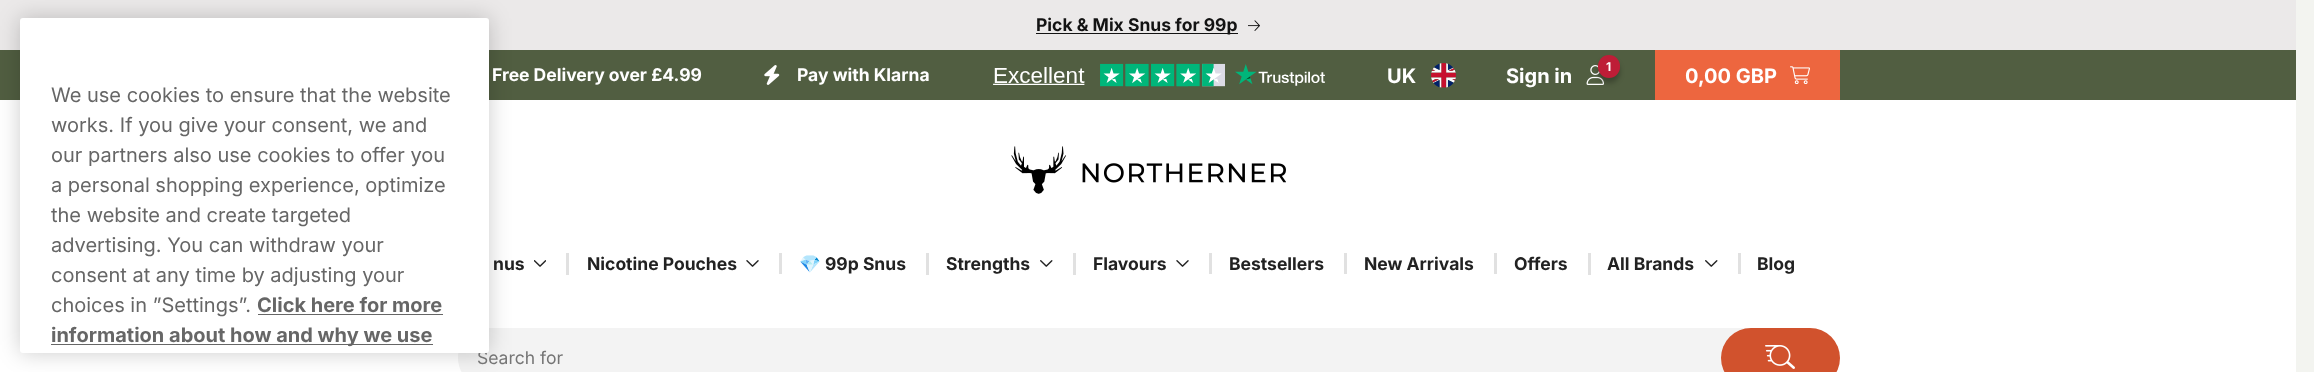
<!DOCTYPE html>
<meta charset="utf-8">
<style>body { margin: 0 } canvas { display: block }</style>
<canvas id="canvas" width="2314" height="372"></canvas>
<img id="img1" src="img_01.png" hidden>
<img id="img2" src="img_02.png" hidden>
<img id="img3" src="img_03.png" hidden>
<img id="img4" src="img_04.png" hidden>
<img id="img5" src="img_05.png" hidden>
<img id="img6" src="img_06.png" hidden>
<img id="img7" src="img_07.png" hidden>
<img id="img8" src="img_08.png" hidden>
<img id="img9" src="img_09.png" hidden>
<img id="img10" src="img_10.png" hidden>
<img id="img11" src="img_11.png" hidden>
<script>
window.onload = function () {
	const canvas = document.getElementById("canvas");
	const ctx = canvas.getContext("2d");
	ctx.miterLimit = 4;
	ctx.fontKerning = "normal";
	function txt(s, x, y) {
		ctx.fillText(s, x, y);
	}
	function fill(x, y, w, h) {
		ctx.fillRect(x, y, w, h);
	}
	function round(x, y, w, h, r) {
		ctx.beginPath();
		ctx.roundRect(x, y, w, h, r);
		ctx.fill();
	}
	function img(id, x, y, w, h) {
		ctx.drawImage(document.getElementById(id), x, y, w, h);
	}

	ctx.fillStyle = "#F3F4F0";
	fill(0, 0, 2314, 372);
	ctx.fillStyle = "#EBE9E9";
	fill(0, 0, 2296, 50);
	ctx.fillStyle = "#FFFFFF";
	fill(0, 100, 2296, 272);
	ctx.fillStyle = "#515E41";
	fill(0, 50, 2296, 50);
	ctx.fillStyle = "#F3F3F3";
	ctx.beginPath();
	ctx.moveTo(488, 328);
	ctx.lineTo(1778, 328);
	ctx.lineTo(1778, 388);
	ctx.lineTo(488, 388);
	ctx.bezierCurveTo(471.5, 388, 458, 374.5, 458, 358);
	ctx.bezierCurveTo(458, 341.5, 471.5, 328, 488, 328);
	ctx.closePath();
	ctx.fill();
	ctx.fillStyle = "rgba(0, 0, 0, 0.2)";
	ctx.filter = "blur(11px)";
	ctx.beginPath();
	ctx.roundRect(20, 18, 469, 335, 3);
	ctx.fill();
	ctx.filter = "none";
	ctx.fillStyle = "#131313";
	fill(1036, 33, 202, 1);
	img("img1", 1248, 20, 12, 11);
	img("img2", 764, 65, 16, 20);
	img("img3", 993, 63, 332, 24);
	img("img4", 1431, 63, 25, 25);
	img("img5", 1586, 65, 18, 20);
	ctx.fillStyle = "rgba(0, 0, 0, 0.25)";
	ctx.filter = "blur(2.5px)";
	ctx.beginPath();
	ctx.roundRect(1598, 60, 22, 23, 11);
	ctx.fill();
	ctx.filter = "none";
	ctx.fillStyle = "#BE1D37";
	round(1598, 55, 22, 23, 11);
	ctx.fillStyle = "#ED663F";
	fill(1655, 50, 185, 50);
	img("img6", 1790, 66, 20, 18);
	img("img7", 1011, 146, 275, 48);
	img("img8", 534, 260, 12, 7);
	ctx.fillStyle = "#E1E1E1";
	fill(566, 253, 3, 22);
	img("img9", 746, 260, 13, 7);
	fill(779, 253, 3, 21);
	fill(926, 253, 3, 22);
	img("img10", 1040, 260, 13, 7);
	fill(1073, 253, 3, 22);
	img("img9", 1176, 260, 13, 7);
	fill(1209, 253, 3, 21);
	fill(1344, 253, 3, 21);
	fill(1494, 253, 3, 21);
	fill(1588, 253, 3, 22);
	img("img10", 1705, 260, 13, 7);
	fill(1738, 253, 3, 21);
	ctx.fillStyle = "#D1522D";
	round(1721, 328, 119, 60, 30);
	img("img11", 1765, 345, 30, 24);
	ctx.font = "bold 17.5px Inter";
	ctx.fillStyle = "#131313";
	txt("Pick & Mix Snus for 99p", 1036, 31);
	ctx.fillStyle = "#FFFFFF";
	txt("Free Delivery over £4.99", 492, 81);
	txt("Pay with Klarna", 797, 81);
	ctx.font = "bold 20px Inter";
	txt("UK", 1387, 83);
	ctx.font = "bold 12px Inter";
	txt("1", 1606, 71);
	ctx.font = "bold 20px Inter";
	txt("Sign in", 1506, 83);
	txt("0,00 GBP", 1685, 83);
	ctx.font = "bold 17.5px Inter";
	ctx.fillStyle = "#222222";
	txt("nus", 493, 270);
	txt("Nicotine Pouches", 587, 270);
	ctx.font = "bold 17.5px Noto Color Emoji";
	txt("💎", 799, 270);
	ctx.font = "bold 17.5px Inter";
	txt("99p Snus", 825, 270);
	txt("Strengths", 946, 270);
	txt("Flavours", 1093, 270);
	txt("Bestsellers", 1229, 270);
	txt("New Arrivals", 1364, 270);
	txt("Offers", 1514, 270);
	txt("All Brands", 1607, 270);
	txt("Blog", 1757, 270);
	ctx.font = "17.5px Inter";
	ctx.fillStyle = "#757575";
	txt("Search for", 477, 364);
	ctx.fillStyle = "#FFFFFF";
	round(20, 18, 469, 335, 3);
	ctx.fillStyle = "#666666";
	fill(51, 344, 382, 1);
	ctx.font = "bold 20px Inter";
	txt("information about how and why we use", 51, 342);
	txt("Click here for more", 257, 312);
	fill(258, 314, 185, 1);
	ctx.font = "20px Inter";
	txt("choices in ”Settings”.", 51, 312);
	txt("consent at any time by adjusting your", 51, 282);
	txt("advertising. You can withdraw your", 51, 252);
	txt("the website and create targeted", 51, 222);
	txt("a personal shopping experience, optimize", 51, 192);
	txt("our partners also use cookies to offer you", 51, 162);
	txt("works. If you give your consent, we and", 51, 132);
	txt("We use cookies to ensure that the website", 51, 102);
};
</script>
